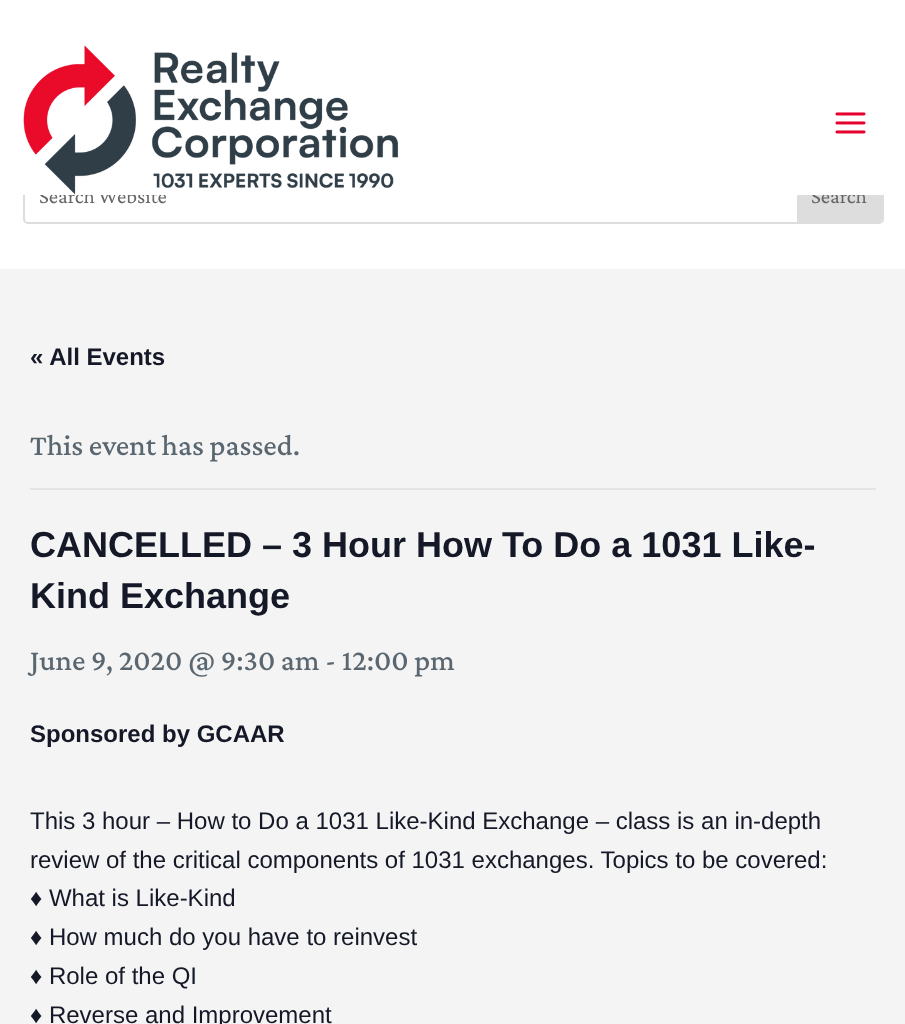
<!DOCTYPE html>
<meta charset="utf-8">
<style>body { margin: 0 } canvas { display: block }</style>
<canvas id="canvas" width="905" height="1024"></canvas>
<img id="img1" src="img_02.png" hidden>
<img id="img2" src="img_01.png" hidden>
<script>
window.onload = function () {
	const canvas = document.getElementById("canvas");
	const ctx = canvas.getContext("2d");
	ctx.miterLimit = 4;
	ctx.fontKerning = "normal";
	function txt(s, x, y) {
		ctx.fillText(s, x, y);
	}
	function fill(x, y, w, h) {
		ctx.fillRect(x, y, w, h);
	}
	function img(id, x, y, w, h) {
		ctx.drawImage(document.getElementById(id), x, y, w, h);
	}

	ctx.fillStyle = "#F4F4F4";
	fill(0, 0, 905, 1024);
	ctx.fillStyle = "#FFFFFF";
	fill(0, 0, 905, 269);
	img("img1", 835, 112, 31, 22);
	ctx.beginPath();
	ctx.roundRect(24, 168, 859, 55, 4);
	ctx.strokeStyle = "#DDDDDD";
	ctx.lineWidth = 2;
	ctx.stroke();
	ctx.fillStyle = "#DDDDDD";
	ctx.beginPath();
	ctx.roundRect(797, 168, 85, 54, [0, 3, 3, 0]);
	ctx.fill();
	ctx.fillStyle = "#E4E4E4";
	fill(30, 488, 846, 2);
	ctx.font = "21px Crimson Pro";
	ctx.fillStyle = "#666666";
	txt("Search Website", 39, 203);
	txt("Search", 811, 203);
	ctx.fillStyle = "#FFFFFF";
	fill(23, 167, 861, 28);
	img("img2", 23, 45, 376, 150);
	ctx.font = "bold 24px Liberation Sans";
	ctx.fillStyle = "#141827";
	txt("« All Events", 30, 365);
	ctx.font = "500 30px Crimson Pro";
	ctx.fillStyle = "#5B6770";
	txt("This event has passed.", 30, 455);
	ctx.font = "bold 36px Liberation Sans";
	ctx.fillStyle = "#141827";
	txt("CANCELLED – 3 Hour How To Do a 1031 Like-", 30, 557);
	txt("Kind Exchange", 30, 608);
	ctx.font = "500 30px Crimson Pro";
	ctx.fillStyle = "#5B6770";
	txt("June 9, 2020 @ 9:30 am - 12:00 pm", 30, 670);
	ctx.font = "bold 24px Liberation Sans";
	ctx.fillStyle = "#141827";
	txt("Sponsored by GCAAR", 30, 742);
	ctx.font = "24px Liberation Sans";
	txt("This 3 hour – How to Do a 1031 Like-Kind Exchange – class is an in-depth", 30, 829);
	txt("review of the critical components of 1031 exchanges. Topics to be covered:", 30, 868);
	txt("♦ What is Like-Kind", 30, 906);
	txt("♦ How much do you have to reinvest", 30, 945);
	txt("♦ Role of the QI", 30, 984);
	txt("♦ Reverse and Improvement", 30, 1023);
};
</script>
